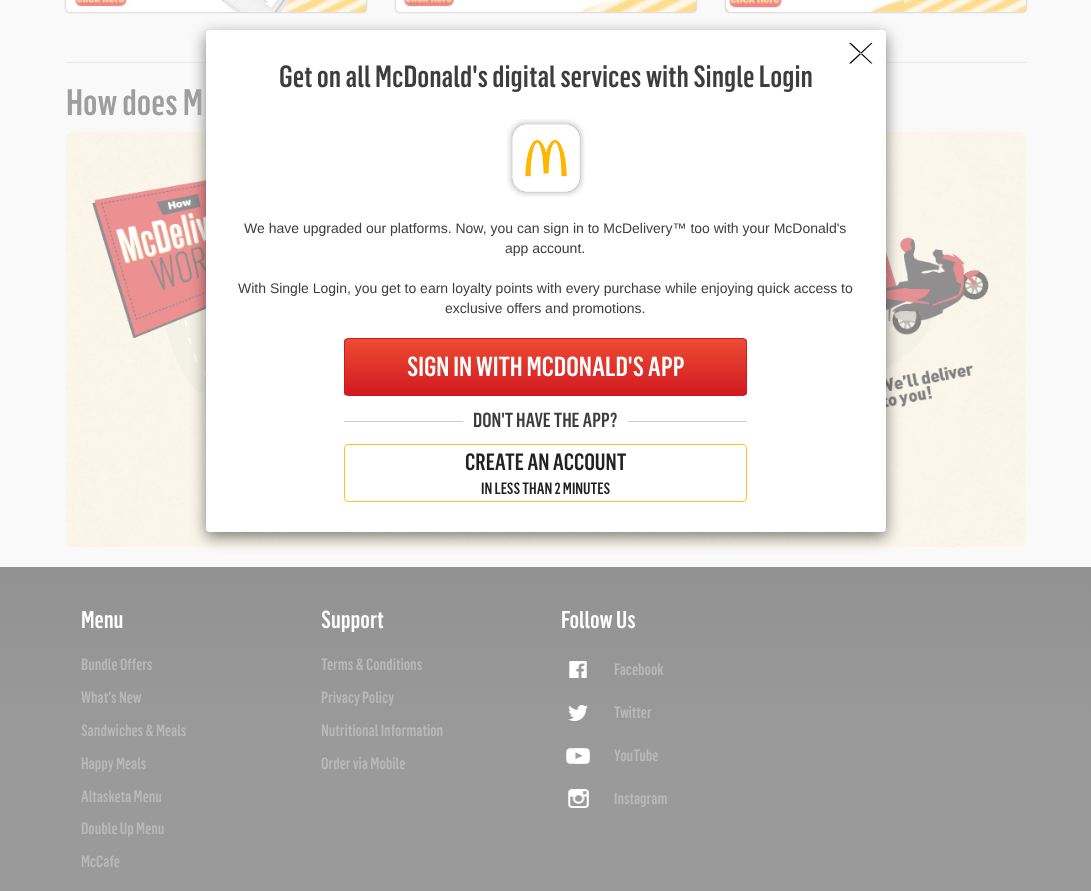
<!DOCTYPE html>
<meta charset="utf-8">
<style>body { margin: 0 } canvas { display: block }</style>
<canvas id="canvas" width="1091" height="891"></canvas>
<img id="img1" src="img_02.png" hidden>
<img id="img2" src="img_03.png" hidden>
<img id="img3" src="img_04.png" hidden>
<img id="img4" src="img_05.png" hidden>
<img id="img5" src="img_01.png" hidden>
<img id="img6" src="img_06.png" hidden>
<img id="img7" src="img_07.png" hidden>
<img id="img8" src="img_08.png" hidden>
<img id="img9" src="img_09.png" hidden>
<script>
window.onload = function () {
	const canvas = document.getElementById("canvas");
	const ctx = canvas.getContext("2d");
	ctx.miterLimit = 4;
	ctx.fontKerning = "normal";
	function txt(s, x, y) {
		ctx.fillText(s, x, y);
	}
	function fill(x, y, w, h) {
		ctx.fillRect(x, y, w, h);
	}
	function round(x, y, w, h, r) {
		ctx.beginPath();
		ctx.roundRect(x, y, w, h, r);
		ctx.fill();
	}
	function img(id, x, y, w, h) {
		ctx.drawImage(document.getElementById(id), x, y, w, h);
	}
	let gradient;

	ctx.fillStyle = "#F9F9F9";
	fill(0, 0, 1091, 891);
	ctx.fillStyle = "#E9E9E9";
	fill(66, 62, 960, 1);
	ctx.fillStyle = "#AAAAAA";
	ctx.filter = "blur(1px)";
	ctx.beginPath();
	ctx.roundRect(66, -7, 300, 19, 4);
	ctx.fill();
	ctx.filter = "none";
	img("img1", 66, 0, 300, 12);
	ctx.filter = "blur(1px)";
	ctx.beginPath();
	ctx.roundRect(396, -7, 300, 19, 4);
	ctx.fill();
	ctx.filter = "none";
	img("img2", 396, 0, 300, 12);
	ctx.filter = "blur(1px)";
	ctx.beginPath();
	ctx.roundRect(726, -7, 300, 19, 4);
	ctx.fill();
	ctx.filter = "none";
	img("img3", 726, 0, 300, 12);
	img("img4", 66, 132, 960, 415);
	ctx.fillStyle = "rgba(0, 0, 0, 0.5)";
	ctx.filter = "blur(7.5px)";
	ctx.beginPath();
	ctx.roundRect(206, 35, 680, 502, 4);
	ctx.fill();
	ctx.filter = "none";
	ctx.fillStyle = "#FFFFFF";
	round(206, 30, 680, 502, 4);
	ctx.fillStyle = "#000000";
	ctx.beginPath();
	ctx.moveTo(851, 63.5);
	ctx.lineTo(849, 63.5);
	ctx.lineTo(871, 43);
	ctx.lineTo(872.5, 43);
	ctx.closePath();
	ctx.moveTo(851, 43);
	ctx.lineTo(849, 43);
	ctx.lineTo(871, 63.5);
	ctx.lineTo(872.5, 63.5);
	ctx.closePath();
	ctx.fill();
	img("img5", 507, 119, 78, 78);
	ctx.save();
	ctx.beginPath();
	ctx.roundRect(344, 338, 403, 58, 4);
	ctx.clip();
	gradient = ctx.createLinearGradient(546, 339, 546, 395);
	gradient.addColorStop(0, "#EC4C34");
	gradient.addColorStop(1, "#D21920");
	ctx.fillStyle = gradient;
	fill(344, 339, 403, 56);
	ctx.restore();
	ctx.beginPath();
	ctx.roundRect(344.5, 338.5, 402, 57, 3.5);
	ctx.strokeStyle = "#D21920";
	ctx.stroke();
	ctx.fillStyle = "#CCCCCC";
	fill(344, 421, 119, 1);
	fill(628, 421, 119, 1);
	ctx.beginPath();
	ctx.roundRect(344.5, 444.5, 402, 57, 3.5);
	ctx.strokeStyle = "#FFC423";
	ctx.stroke();
	gradient = ctx.createLinearGradient(546, 567, 546, 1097);
	gradient.addColorStop(0, "#929292");
	gradient.addColorStop(0.35, "#9A9A9A");
	ctx.fillStyle = gradient;
	fill(0, 567, 1091, 324);
	img("img6", 569, 661, 18, 17);
	img("img7", 568, 705, 20, 16);
	img("img8", 566, 748, 24, 16);
	img("img9", 568, 789, 21, 19);
	ctx.font = "500 30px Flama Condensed";
	ctx.fillStyle = "#3D3D3D";
	txt("Get on all McDonald's digital services with Single Login", 279, 87);
	ctx.font = "14px Liberation Sans";
	txt("We have upgraded our platforms. Now, you can sign in to McDelivery™ too with your McDonald's", 244, 233);
	txt("app account.", 505, 253);
	txt("With Single Login, you get to earn loyalty points with every purchase while enjoying quick access to", 238, 293);
	txt("exclusive offers and promotions.", 445, 313);
	ctx.font = "500 27px Flama Condensed";
	ctx.fillStyle = "#FFFFFF";
	txt("SIGN IN WITH MCDONALD'S APP", 407, 376);
	ctx.font = "500 20px Flama Condensed";
	ctx.fillStyle = "#3D3D3D";
	txt("DON'T HAVE THE APP?", 473, 427);
	ctx.font = "500 23px Flama Condensed";
	ctx.fillStyle = "#222222";
	txt("CREATE AN ACCOUNT", 465, 470);
	ctx.font = "500 16px Flama Condensed";
	txt("IN LESS THAN 2 MINUTES", 481, 494);
	ctx.font = "500 36px Flama Condensed";
	ctx.fillStyle = "#9E9E9E";
	txt("How does M", 66, 115);
	ctx.font = "500 24px Flama Condensed";
	ctx.fillStyle = "#FFFFFF";
	txt("Menu", 81, 628);
	ctx.font = "500 16px Flama Condensed";
	ctx.fillStyle = "#B9B9B9";
	txt("Bundle Offers", 81, 670);
	txt("What's New", 81, 703);
	txt("Sandwiches & Meals", 81, 736);
	txt("Happy Meals", 81, 769);
	txt("Altasketa Menu", 81, 802);
	txt("Double Up Menu", 81, 834);
	txt("McCafe", 81, 867);
	ctx.font = "500 24px Flama Condensed";
	ctx.fillStyle = "#FFFFFF";
	txt("Support", 321, 628);
	ctx.font = "500 16px Flama Condensed";
	ctx.fillStyle = "#B9B9B9";
	txt("Terms & Conditions", 321, 670);
	txt("Privacy Policy", 321, 703);
	txt("Nutritional Information", 321, 736);
	txt("Order via Mobile", 321, 769);
	ctx.font = "500 24px Flama Condensed";
	ctx.fillStyle = "#FFFFFF";
	txt("Follow Us", 561, 628);
	ctx.font = "500 16px Flama Condensed";
	ctx.fillStyle = "#B9B9B9";
	txt("Facebook", 614, 675);
	txt("Twitter", 614, 718);
	txt("YouTube", 614, 761);
	txt("Instagram", 614, 804);
};
</script>
